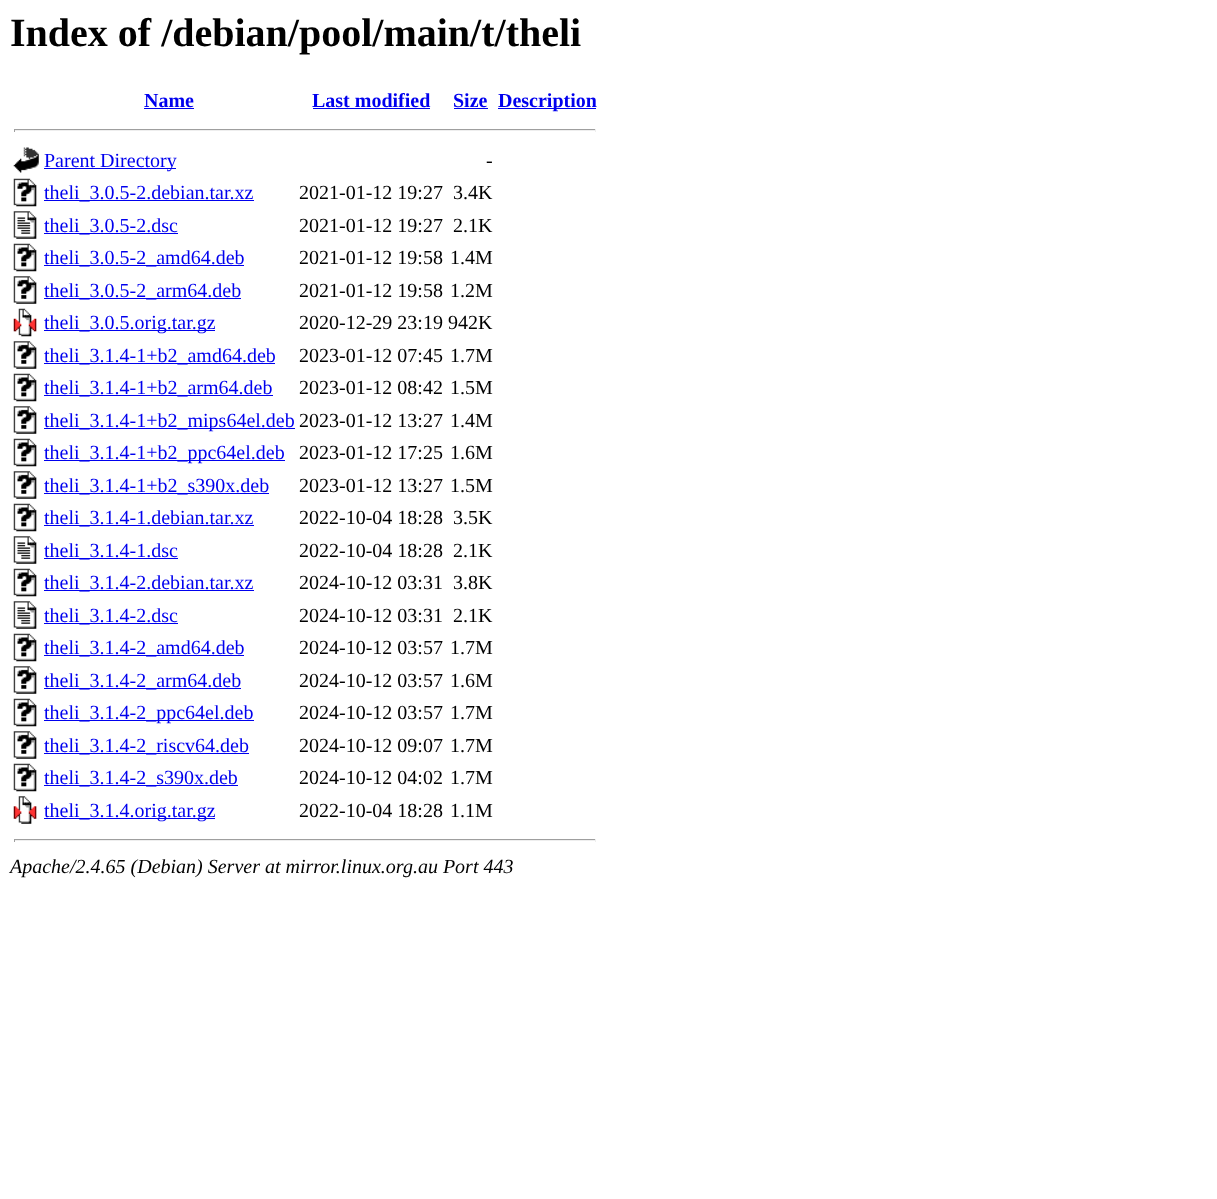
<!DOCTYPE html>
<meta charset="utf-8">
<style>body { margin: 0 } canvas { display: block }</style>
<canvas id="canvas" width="1217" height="1199"></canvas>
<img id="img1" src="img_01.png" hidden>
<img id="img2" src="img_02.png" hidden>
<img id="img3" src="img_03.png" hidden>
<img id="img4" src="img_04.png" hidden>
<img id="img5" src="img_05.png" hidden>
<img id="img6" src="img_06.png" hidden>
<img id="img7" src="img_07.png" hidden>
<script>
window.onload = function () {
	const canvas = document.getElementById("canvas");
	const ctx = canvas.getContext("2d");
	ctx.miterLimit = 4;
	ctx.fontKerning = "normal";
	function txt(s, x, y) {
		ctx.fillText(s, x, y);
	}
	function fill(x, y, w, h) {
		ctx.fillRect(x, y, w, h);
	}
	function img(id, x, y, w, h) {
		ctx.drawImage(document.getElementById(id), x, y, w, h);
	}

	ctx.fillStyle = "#FFFFFF";
	fill(0, 0, 1217, 1199);
	ctx.fillStyle = "#0000EE";
	fill(144, 108, 50, 1);
	fill(313, 108, 117, 1);
	fill(454, 108, 34, 1);
	fill(498, 108, 98, 1);
	ctx.fillStyle = "#9F9F9F";
	fill(14, 129, 582, 1);
	ctx.fillStyle = "#EEEEEE";
	fill(595, 129, 1, 3);
	fill(14, 130, 582, 1);
	ctx.fillStyle = "#9F9F9F";
	fill(14, 129, 1, 3);
	img("img1", 13, 147, 26, 26);
	ctx.fillStyle = "#0000EE";
	fill(44, 168, 132, 1);
	img("img2", 13, 178, 24, 29);
	fill(44, 200, 210, 1);
	img("img3", 13, 211, 24, 28);
	fill(44, 233, 134, 1);
	img("img2", 13, 243, 24, 29);
	fill(44, 265, 200, 1);
	img("img4", 13, 276, 24, 28);
	fill(44, 298, 197, 1);
	img("img5", 13, 308, 24, 29);
	fill(44, 330, 171, 1);
	img("img6", 13, 341, 24, 28);
	fill(44, 363, 231, 1);
	img("img2", 13, 373, 24, 29);
	fill(44, 395, 229, 1);
	img("img6", 13, 406, 24, 28);
	fill(44, 428, 251, 1);
	img("img2", 13, 438, 24, 29);
	fill(44, 460, 241, 1);
	img("img6", 13, 471, 24, 28);
	fill(44, 493, 225, 1);
	img("img2", 13, 503, 24, 29);
	fill(44, 525, 210, 1);
	img("img3", 13, 536, 24, 28);
	fill(44, 558, 134, 1);
	img("img2", 13, 568, 24, 29);
	fill(44, 590, 210, 1);
	img("img3", 13, 601, 24, 28);
	fill(44, 623, 134, 1);
	img("img2", 13, 633, 24, 29);
	fill(44, 655, 200, 1);
	img("img6", 13, 666, 24, 28);
	fill(44, 688, 197, 1);
	img("img2", 13, 698, 24, 29);
	fill(44, 720, 210, 1);
	img("img6", 13, 731, 24, 28);
	fill(44, 753, 205, 1);
	img("img2", 13, 763, 24, 29);
	fill(44, 785, 194, 1);
	img("img7", 13, 796, 24, 28);
	fill(44, 818, 171, 1);
	ctx.fillStyle = "#9F9F9F";
	fill(14, 839, 582, 1);
	ctx.fillStyle = "#EEEEEE";
	fill(595, 839, 1, 3);
	fill(14, 840, 582, 1);
	ctx.fillStyle = "#9F9F9F";
	fill(14, 839, 1, 3);
	ctx.font = "bold 40px Liberation Serif";
	ctx.fillStyle = "#000000";
	txt("Index of /debian/pool/main/t/theli", 10, 46);
	ctx.font = "bold 20px Liberation Serif";
	ctx.fillStyle = "#0000EE";
	txt("Name", 144, 107);
	txt("Last modified", 312, 107);
	txt("Size", 453, 107);
	txt("Description", 498, 107);
	ctx.font = "20px Liberation Serif";
	txt("Parent Directory", 44, 167);
	ctx.fillStyle = "#000000";
	txt("-", 486, 167);
	ctx.fillStyle = "#0000EE";
	txt("theli_3.0.5-2.debian.tar.xz", 44, 199);
	ctx.fillStyle = "#000000";
	txt("2021-01-12 19:27", 299, 199);
	txt("3.4K", 453, 199);
	ctx.fillStyle = "#0000EE";
	txt("theli_3.0.5-2.dsc", 44, 232);
	ctx.fillStyle = "#000000";
	txt("2021-01-12 19:27", 299, 232);
	txt("2.1K", 453, 232);
	ctx.fillStyle = "#0000EE";
	txt("theli_3.0.5-2_amd64.deb", 44, 264);
	ctx.fillStyle = "#000000";
	txt("2021-01-12 19:58", 299, 264);
	txt("1.4M", 450, 264);
	ctx.fillStyle = "#0000EE";
	txt("theli_3.0.5-2_arm64.deb", 44, 297);
	ctx.fillStyle = "#000000";
	txt("2021-01-12 19:58", 299, 297);
	txt("1.2M", 450, 297);
	ctx.fillStyle = "#0000EE";
	txt("theli_3.0.5.orig.tar.gz", 44, 329);
	ctx.fillStyle = "#000000";
	txt("2020-12-29 23:19 942K", 299, 329);
	ctx.fillStyle = "#0000EE";
	txt("theli_3.1.4-1+b2_amd64.deb", 44, 362);
	ctx.fillStyle = "#000000";
	txt("2023-01-12 07:45", 299, 362);
	txt("1.7M", 450, 362);
	ctx.fillStyle = "#0000EE";
	txt("theli_3.1.4-1+b2_arm64.deb", 44, 394);
	ctx.fillStyle = "#000000";
	txt("2023-01-12 08:42", 299, 394);
	txt("1.5M", 450, 394);
	ctx.fillStyle = "#0000EE";
	txt("theli_3.1.4-1+b2_mips64el.deb", 44, 427);
	ctx.fillStyle = "#000000";
	txt("2023-01-12 13:27", 299, 427);
	txt("1.4M", 450, 427);
	ctx.fillStyle = "#0000EE";
	txt("theli_3.1.4-1+b2_ppc64el.deb", 44, 459);
	ctx.fillStyle = "#000000";
	txt("2023-01-12 17:25", 299, 459);
	txt("1.6M", 450, 459);
	ctx.fillStyle = "#0000EE";
	txt("theli_3.1.4-1+b2_s390x.deb", 44, 492);
	ctx.fillStyle = "#000000";
	txt("2023-01-12 13:27", 299, 492);
	txt("1.5M", 450, 492);
	ctx.fillStyle = "#0000EE";
	txt("theli_3.1.4-1.debian.tar.xz", 44, 524);
	ctx.fillStyle = "#000000";
	txt("2022-10-04 18:28", 299, 524);
	txt("3.5K", 453, 524);
	ctx.fillStyle = "#0000EE";
	txt("theli_3.1.4-1.dsc", 44, 557);
	ctx.fillStyle = "#000000";
	txt("2022-10-04 18:28", 299, 557);
	txt("2.1K", 453, 557);
	ctx.fillStyle = "#0000EE";
	txt("theli_3.1.4-2.debian.tar.xz", 44, 589);
	ctx.fillStyle = "#000000";
	txt("2024-10-12 03:31", 299, 589);
	txt("3.8K", 453, 589);
	ctx.fillStyle = "#0000EE";
	txt("theli_3.1.4-2.dsc", 44, 622);
	ctx.fillStyle = "#000000";
	txt("2024-10-12 03:31", 299, 622);
	txt("2.1K", 453, 622);
	ctx.fillStyle = "#0000EE";
	txt("theli_3.1.4-2_amd64.deb", 44, 654);
	ctx.fillStyle = "#000000";
	txt("2024-10-12 03:57", 299, 654);
	txt("1.7M", 450, 654);
	ctx.fillStyle = "#0000EE";
	txt("theli_3.1.4-2_arm64.deb", 44, 687);
	ctx.fillStyle = "#000000";
	txt("2024-10-12 03:57", 299, 687);
	txt("1.6M", 450, 687);
	ctx.fillStyle = "#0000EE";
	txt("theli_3.1.4-2_ppc64el.deb", 44, 719);
	ctx.fillStyle = "#000000";
	txt("2024-10-12 03:57", 299, 719);
	txt("1.7M", 450, 719);
	ctx.fillStyle = "#0000EE";
	txt("theli_3.1.4-2_riscv64.deb", 44, 752);
	ctx.fillStyle = "#000000";
	txt("2024-10-12 09:07", 299, 752);
	txt("1.7M", 450, 752);
	ctx.fillStyle = "#0000EE";
	txt("theli_3.1.4-2_s390x.deb", 44, 784);
	ctx.fillStyle = "#000000";
	txt("2024-10-12 04:02", 299, 784);
	txt("1.7M", 450, 784);
	ctx.fillStyle = "#0000EE";
	txt("theli_3.1.4.orig.tar.gz", 44, 817);
	ctx.fillStyle = "#000000";
	txt("2022-10-04 18:28", 299, 817);
	txt("1.1M", 450, 817);
	ctx.font = "italic 20px Liberation Serif";
	txt("Apache/2.4.65 (Debian) Server at mirror.linux.org.au Port 443", 10, 873);
};
</script>
